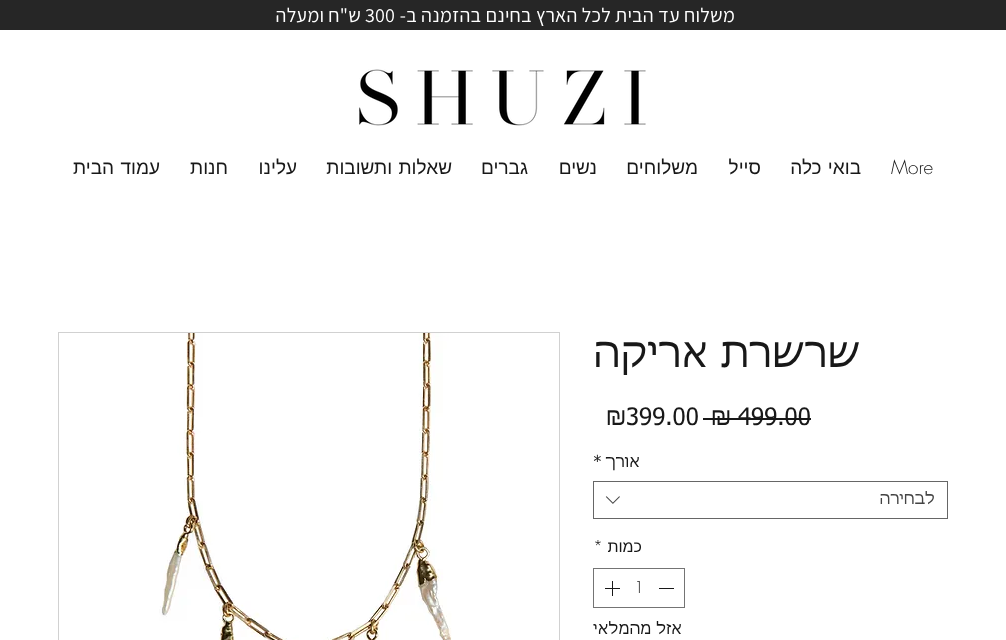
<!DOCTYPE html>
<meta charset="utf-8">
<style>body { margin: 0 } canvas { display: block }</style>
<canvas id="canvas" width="1006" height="640"></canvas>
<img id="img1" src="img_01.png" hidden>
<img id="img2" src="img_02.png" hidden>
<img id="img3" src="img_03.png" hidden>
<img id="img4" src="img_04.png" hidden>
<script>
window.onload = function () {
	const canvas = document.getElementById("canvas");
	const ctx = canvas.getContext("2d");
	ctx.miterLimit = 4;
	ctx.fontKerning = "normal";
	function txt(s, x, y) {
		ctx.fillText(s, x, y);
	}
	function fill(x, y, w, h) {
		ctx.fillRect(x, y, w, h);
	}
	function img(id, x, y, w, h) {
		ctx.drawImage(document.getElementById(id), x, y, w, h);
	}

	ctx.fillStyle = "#FFFFFF";
	fill(0, 0, 1006, 640);
	ctx.fillStyle = "#262626";
	fill(0, 0, 1006, 30);
	img("img1", 359, 69, 287, 57);
	ctx.fillStyle = "#181818";
	fill(738, 418, 73, 2);
	fill(703, 418, 35, 2);
	ctx.strokeStyle = "#666666";
	ctx.strokeRect(593.5, 481.5, 354, 37);
	img("img2", 605, 496, 15, 8);
	ctx.strokeStyle = "#747474";
	ctx.strokeRect(593.5, 568.5, 91, 39);
	fill(659, 588, 15, 1);
	img("img3", 605, 581, 15, 15);
	ctx.strokeStyle = "#D1D1D1";
	ctx.strokeRect(58.5, 332.5, 501, 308);
	img("img4", 159, 333, 293, 307);
	ctx.letterSpacing = "0.2px";
	ctx.direction = "rtl";
	ctx.font = "20px Assistant";
	ctx.fillStyle = "#FFFFFF";
	txt("משלוח עד הבית לכל הארץ בחינם בהזמנה ב-", 735, 22);
	ctx.direction = "ltr";
	txt("300", 365, 22);
	ctx.direction = "rtl";
	txt("ש\"ח ומעלה", 361, 22);
	ctx.letterSpacing = "0px";
	ctx.direction = "ltr";
	ctx.font = "300 19px futura";
	ctx.fillStyle = "#181818";
	txt("More", 891, 174);
	ctx.wordSpacing = "1px";
	ctx.direction = "rtl";
	ctx.font = "19px Liberation Sans";
	txt("בואי כלה", 861, 174);
	ctx.wordSpacing = "0px";
	txt("סייל", 761, 174);
	txt("משלוחים", 698, 174);
	txt("נשים", 597, 174);
	txt("גברים", 528, 174);
	ctx.wordSpacing = "1px";
	txt("שאלות ותשובות", 452, 174);
	ctx.wordSpacing = "0px";
	txt("עלינו", 297, 174);
	txt("חנות", 228, 174);
	ctx.wordSpacing = "1px";
	txt("עמוד הבית", 160, 174);
	ctx.wordSpacing = "0px";
	ctx.font = "40px tahoma";
	txt("שרשרת אריקה", 860, 367);
	ctx.direction = "ltr";
	ctx.font = "24px 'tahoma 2'";
	txt("499.00", 738, 425);
	ctx.font = "24px tahoma";
	txt("₪", 711, 425);
	ctx.font = "24px 'tahoma 2'";
	txt("399.00", 626, 425);
	ctx.font = "24px tahoma";
	txt("₪", 606, 425);
	ctx.direction = "rtl";
	ctx.font = "16px tahoma";
	txt("אורך", 640, 467);
	ctx.direction = "ltr";
	ctx.font = "16px 'tahoma 2'";
	txt("*", 593, 467);
	ctx.direction = "rtl";
	ctx.font = "16px tahoma";
	ctx.fillStyle = "#444444";
	txt("לבחירה", 935, 504);
	ctx.font = "16px Liberation Sans";
	ctx.fillStyle = "#181818";
	txt("כמות", 642, 552);
	ctx.direction = "ltr";
	ctx.font = "300 16px futura";
	txt("*", 593, 552);
	txt("1", 634, 593);
	ctx.direction = "rtl";
	ctx.font = "16px tahoma";
	txt("אזל מהמלאי", 682, 634);
};
</script>
